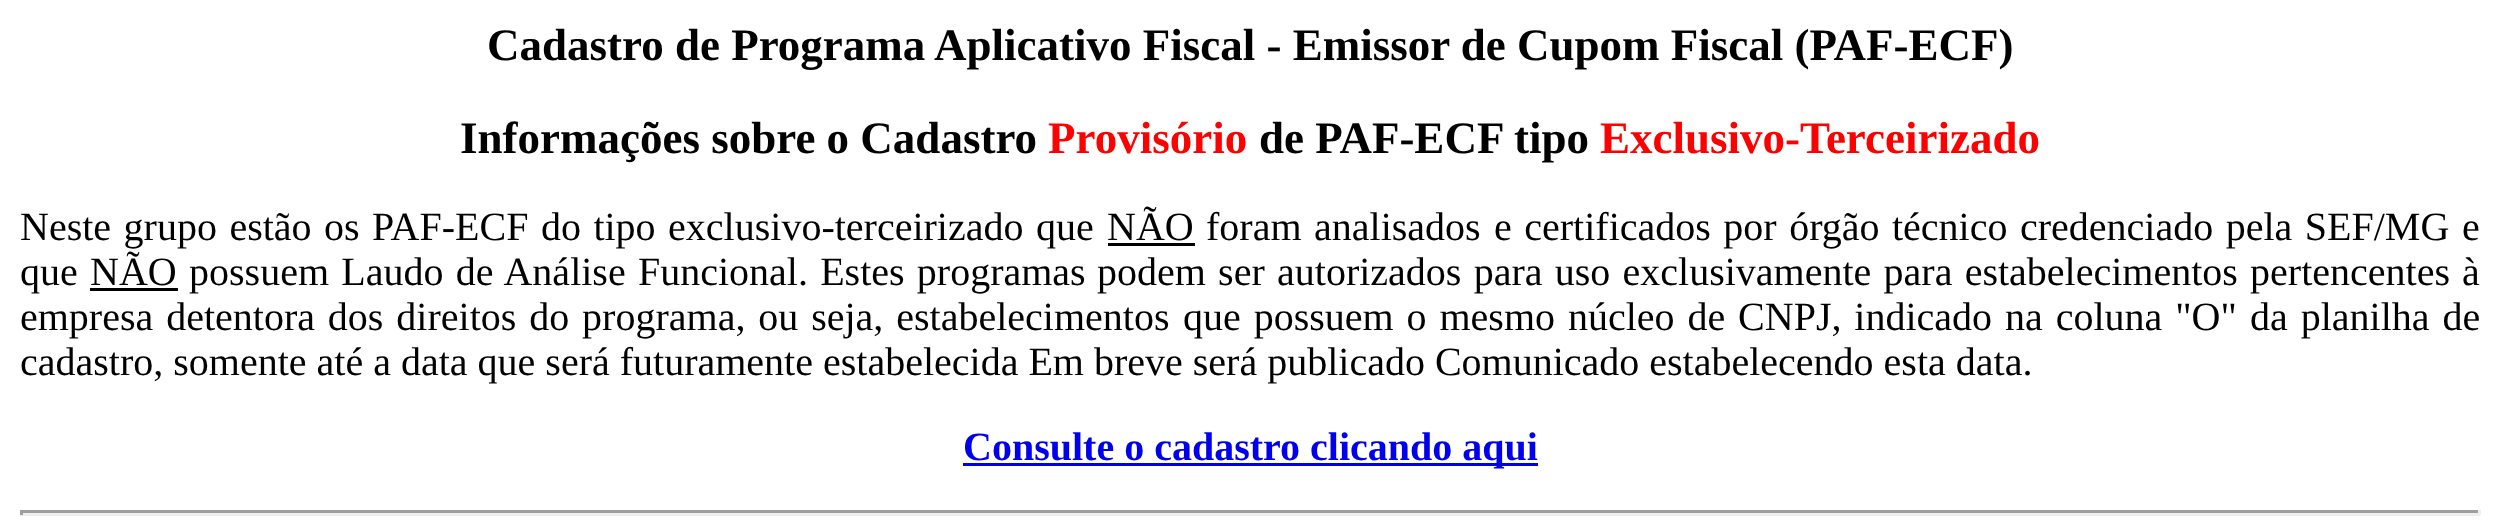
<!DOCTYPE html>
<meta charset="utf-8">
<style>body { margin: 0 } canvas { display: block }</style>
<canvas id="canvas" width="2500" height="527"></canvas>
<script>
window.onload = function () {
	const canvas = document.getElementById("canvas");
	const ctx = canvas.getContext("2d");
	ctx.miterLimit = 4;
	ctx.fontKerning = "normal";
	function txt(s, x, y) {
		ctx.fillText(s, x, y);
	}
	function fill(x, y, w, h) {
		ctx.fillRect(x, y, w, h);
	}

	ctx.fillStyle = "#FFFFFF";
	fill(0, 0, 2500, 527);
	ctx.fillStyle = "#000000";
	fill(1108, 243, 87, 3);
	fill(90, 288, 88, 3);
	ctx.fillStyle = "#0000EE";
	fill(963, 463, 575, 3);
	ctx.fillStyle = "#9F9F9F";
	fill(20, 510, 2460, 3);
	ctx.fillStyle = "#EEEEEE";
	fill(2478, 510, 3, 5);
	fill(20, 513, 2460, 3);
	ctx.fillStyle = "#9F9F9F";
	fill(20, 510, 3, 5);
	ctx.font = "bold 45px Liberation Serif";
	ctx.fillStyle = "#000000";
	txt("Cadastro de Programa Aplicativo Fiscal - Emissor de Cupom Fiscal (PAF-ECF)", 487, 60);
	txt("Informações sobre o Cadastro", 460, 153);
	ctx.fillStyle = "#FF0000";
	txt("Provisório", 1048, 153);
	ctx.fillStyle = "#000000";
	txt("de PAF-ECF tipo", 1259, 153);
	ctx.fillStyle = "#FF0000";
	txt("Exclusivo-Terceirizado", 1600, 153);
	ctx.wordSpacing = "2.5px";
	ctx.font = "40px Liberation Serif";
	ctx.fillStyle = "#000000";
	txt("Neste grupo estão os", 20, 240);
	txt("PAF-ECF do tipo exclusivo-terceirizado que", 372, 240);
	ctx.wordSpacing = "0px";
	txt("NÃO", 1107, 240);
	ctx.wordSpacing = "2.5px";
	txt("foram analisados", 1206, 240);
	txt("e certificados por órgão técnico credenciado pela SEF/MG", 1494, 240);
	ctx.wordSpacing = "0px";
	txt("e", 2462, 240);
	txt("que", 20, 285);
	txt("NÃO", 90, 285);
	ctx.wordSpacing = "2.25px";
	txt("possuem Laudo de Análise Funcional. Estes programas", 189, 285);
	txt("podem ser autorizados para uso exclusivamente para estabelecimentos pertencentes", 1097, 285);
	ctx.wordSpacing = "0px";
	txt("à", 2462, 285);
	ctx.wordSpacing = "2.9px";
	txt("empresa detentora dos direitos do programa, ou seja, estabelecimentos", 20, 330);
	txt("que possuem o mesmo núcleo de CNPJ, indicado na coluna \"O\"", 1183, 330);
	txt("da planilha de", 2250, 330);
	ctx.wordSpacing = "0px";
	txt("cadastro, somente até a data que será futuramente estabelecida Em breve será publicado Comunicado estabelecendo esta data.", 20, 375);
	ctx.font = "bold 40px Liberation Serif";
	ctx.fillStyle = "#0000EE";
	txt("Consulte o cadastro clicando aqui", 963, 460);
};
</script>
